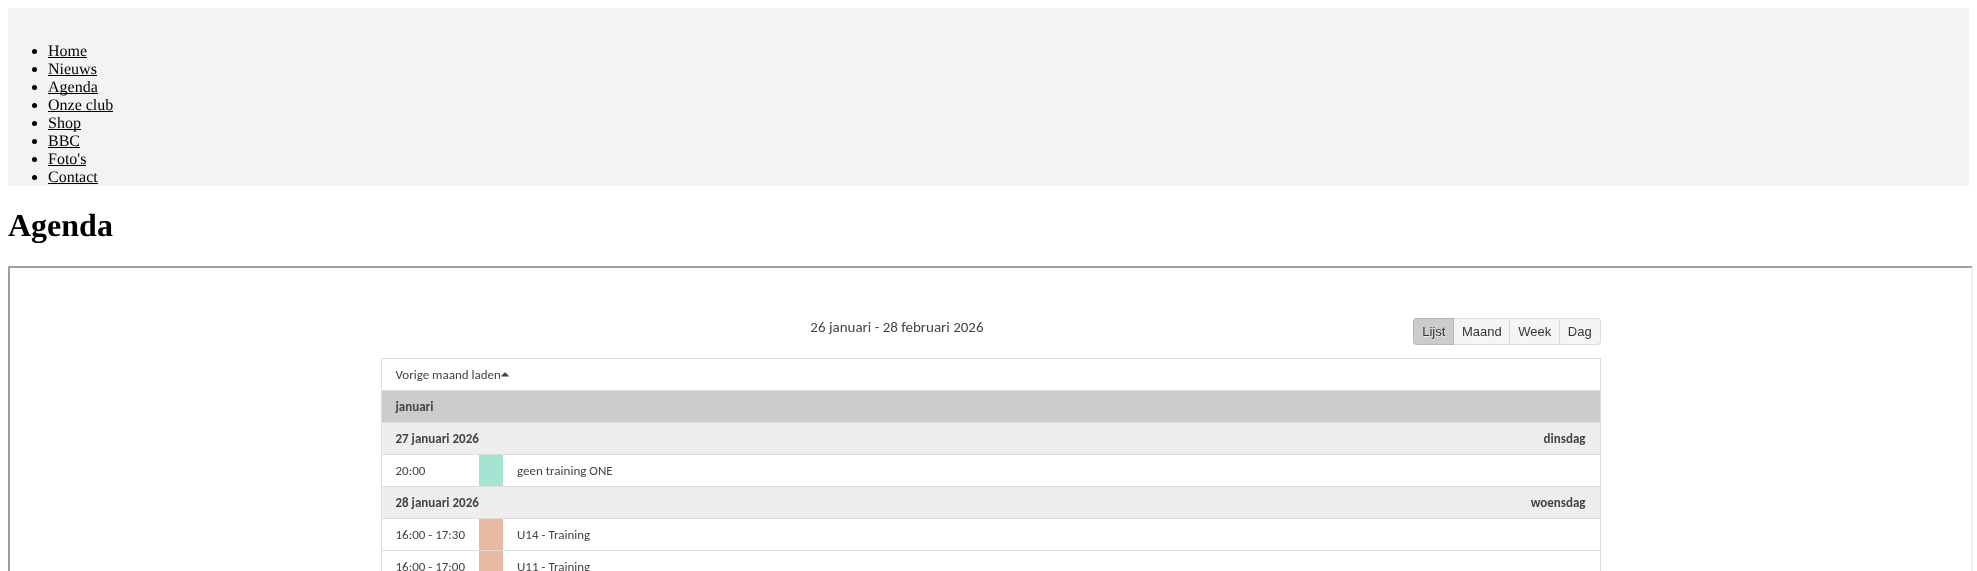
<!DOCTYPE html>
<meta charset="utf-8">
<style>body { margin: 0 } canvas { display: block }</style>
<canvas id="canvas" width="1977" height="571"></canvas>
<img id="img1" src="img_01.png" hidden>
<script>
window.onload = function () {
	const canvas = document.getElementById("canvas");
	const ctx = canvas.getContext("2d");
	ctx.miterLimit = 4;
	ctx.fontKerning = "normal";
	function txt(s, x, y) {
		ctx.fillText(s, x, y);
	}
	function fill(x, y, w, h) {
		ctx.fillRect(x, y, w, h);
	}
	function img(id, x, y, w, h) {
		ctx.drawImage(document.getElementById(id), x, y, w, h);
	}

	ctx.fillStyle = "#FFFFFF";
	fill(0, 0, 1977, 571);
	ctx.fillStyle = "#F3F3F3";
	fill(8, 8, 1961, 178);
	ctx.fillStyle = "#000000";
	ctx.beginPath();
	ctx.arc(34.5, 51.5, 2.5, 0, Math.PI * 2);
	ctx.fill();
	fill(48, 57, 39, 1);
	ctx.beginPath();
	ctx.arc(34.5, 69.5, 2.5, 0, Math.PI * 2);
	ctx.fill();
	fill(48, 75, 49, 1);
	ctx.beginPath();
	ctx.arc(34.5, 87.5, 2.5, 0, Math.PI * 2);
	ctx.fill();
	fill(48, 93, 50, 1);
	ctx.beginPath();
	ctx.arc(34.5, 105.5, 2.5, 0, Math.PI * 2);
	ctx.fill();
	fill(48, 111, 65, 1);
	ctx.beginPath();
	ctx.arc(34.5, 123.5, 2.5, 0, Math.PI * 2);
	ctx.fill();
	fill(48, 129, 33, 1);
	ctx.beginPath();
	ctx.arc(34.5, 141.5, 2.5, 0, Math.PI * 2);
	ctx.fill();
	fill(48, 147, 32, 1);
	ctx.beginPath();
	ctx.arc(34.5, 159.5, 2.5, 0, Math.PI * 2);
	ctx.fill();
	fill(48, 165, 38, 1);
	ctx.beginPath();
	ctx.arc(34.5, 177.5, 2.5, 0, Math.PI * 2);
	ctx.fill();
	fill(48, 183, 50, 1);
	ctx.fillStyle = "#9F9F9F";
	ctx.beginPath();
	ctx.moveTo(8, 266);
	ctx.lineTo(1973, 266);
	ctx.lineTo(1971, 268);
	ctx.lineTo(10, 268);
	ctx.closePath();
	ctx.fill();
	ctx.beginPath();
	ctx.moveTo(8, 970);
	ctx.lineTo(8, 266);
	ctx.lineTo(10, 268);
	ctx.lineTo(10, 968);
	ctx.closePath();
	ctx.fill();
	img("img1", 381, 318, 1220, 253);
	ctx.fillStyle = "#EEEEEE";
	ctx.beginPath();
	ctx.moveTo(1973, 266);
	ctx.lineTo(1973, 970);
	ctx.lineTo(1971, 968);
	ctx.lineTo(1971, 268);
	ctx.closePath();
	ctx.fill();
	ctx.font = "16px Liberation Serif";
	ctx.fillStyle = "#000000";
	txt("Home", 48, 56);
	txt("Nieuws", 48, 74);
	txt("Agenda", 48, 92);
	txt("Onze club", 48, 110);
	txt("Shop", 48, 128);
	txt("BBC", 48, 146);
	txt("Foto's", 48, 164);
	txt("Contact", 48, 182);
	ctx.font = "bold 32px Liberation Serif";
	txt("Agenda", 8, 236);
};
</script>
